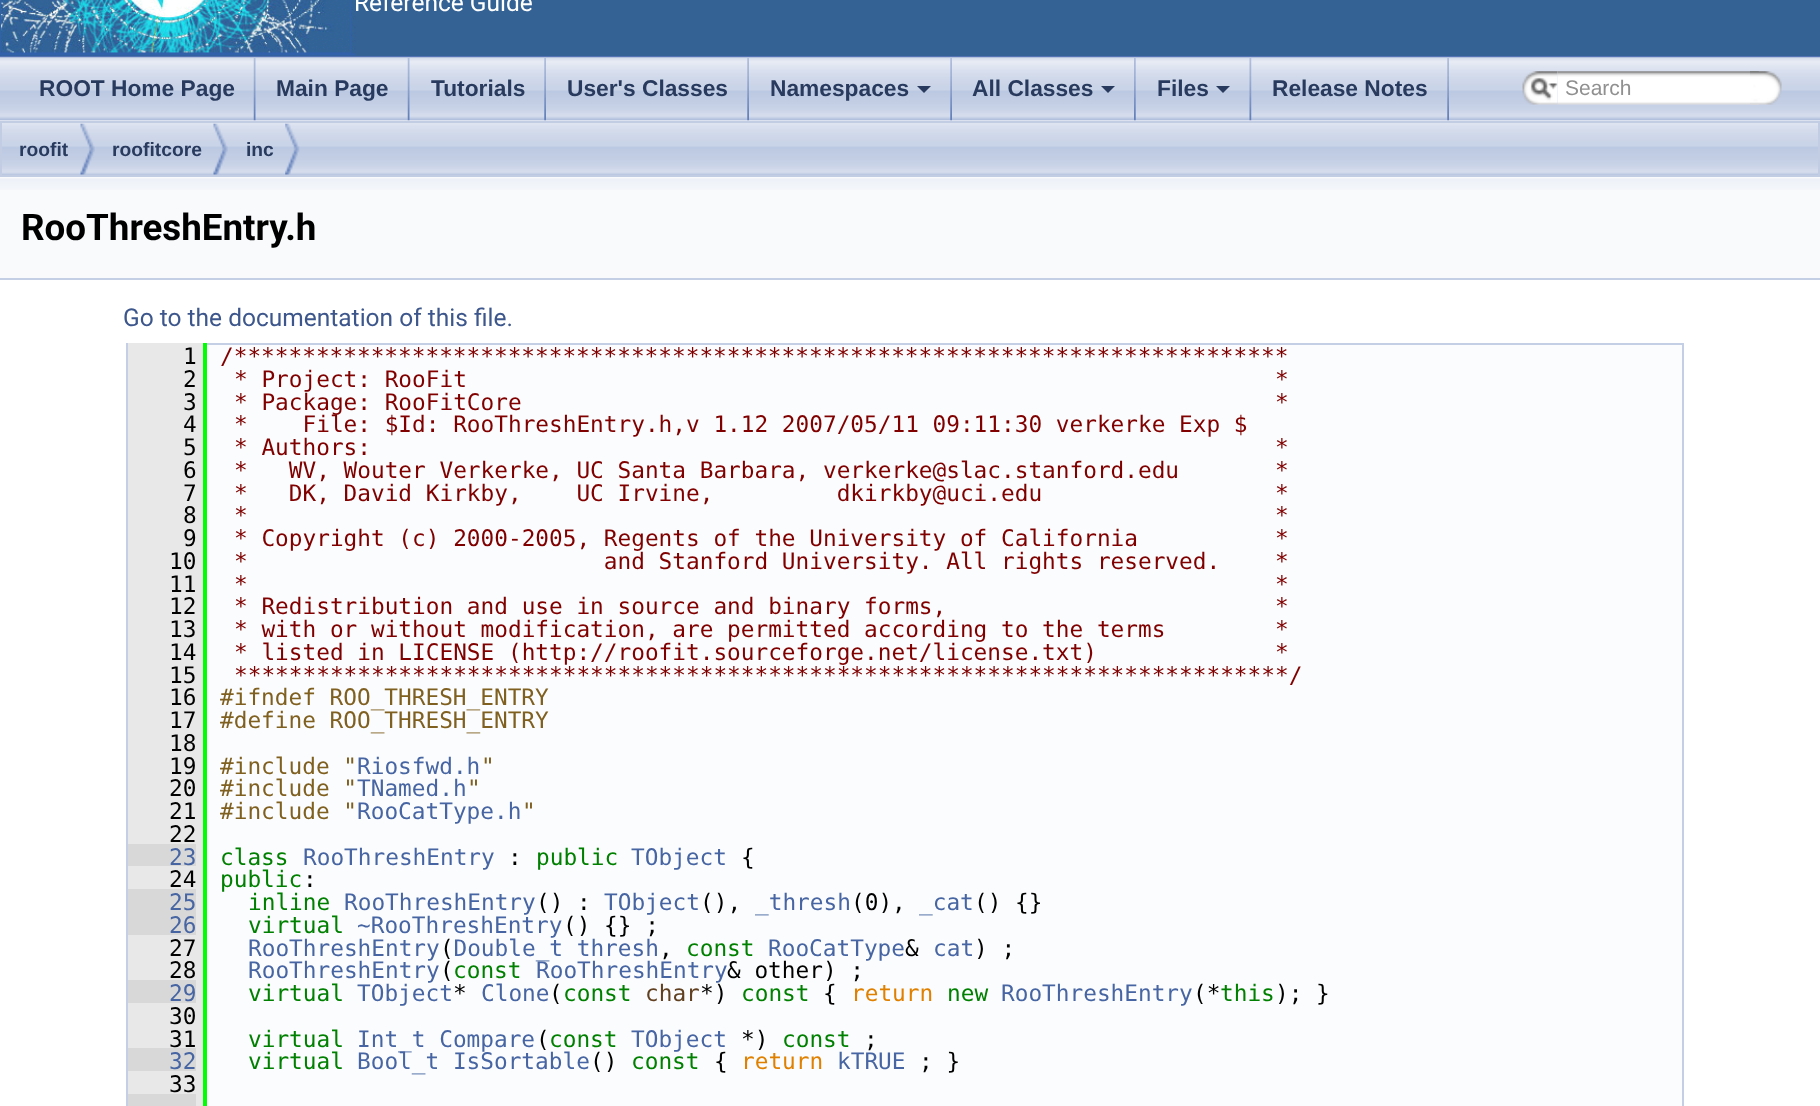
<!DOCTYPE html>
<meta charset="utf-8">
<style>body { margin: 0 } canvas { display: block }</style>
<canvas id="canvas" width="1820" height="1106"></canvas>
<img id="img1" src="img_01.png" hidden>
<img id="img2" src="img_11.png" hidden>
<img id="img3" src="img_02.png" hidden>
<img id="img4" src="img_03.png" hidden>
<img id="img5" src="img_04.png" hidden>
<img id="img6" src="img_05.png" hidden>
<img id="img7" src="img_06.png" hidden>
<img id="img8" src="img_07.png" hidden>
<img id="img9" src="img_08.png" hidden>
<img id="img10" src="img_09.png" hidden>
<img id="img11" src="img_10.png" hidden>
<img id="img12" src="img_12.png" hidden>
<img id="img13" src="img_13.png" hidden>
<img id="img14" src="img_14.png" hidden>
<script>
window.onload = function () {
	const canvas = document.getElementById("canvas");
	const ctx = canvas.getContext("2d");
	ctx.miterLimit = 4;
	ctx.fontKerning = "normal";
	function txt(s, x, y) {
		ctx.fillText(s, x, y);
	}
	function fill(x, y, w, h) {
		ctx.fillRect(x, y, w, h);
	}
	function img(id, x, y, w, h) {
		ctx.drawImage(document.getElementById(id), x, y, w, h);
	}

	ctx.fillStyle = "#FFFFFF";
	fill(0, 0, 1820, 1106);
	ctx.fillStyle = "#5373B4";
	fill(0, 56, 1820, 2);
	ctx.fillStyle = "#346295";
	fill(0, 0, 1820, 56);
	img("img1", 0, 0, 356, 56);
	img("img2", 0, 120, 1820, 55);
	img("img3", 0, 57, 1820, 64);
	img("img4", 253, 58, 3, 63);
	img("img4", 407, 58, 3, 63);
	img("img5", 544, 58, 2, 63);
	img("img5", 747, 58, 2, 63);
	img("img5", 950, 58, 2, 63);
	ctx.fillStyle = "#283A5D";
	ctx.beginPath();
	ctx.moveTo(917, 86);
	ctx.lineTo(931, 86);
	ctx.lineTo(924, 93);
	ctx.closePath();
	ctx.fill();
	img("img6", 1134, 58, 2, 63);
	ctx.beginPath();
	ctx.moveTo(1101, 86);
	ctx.lineTo(1115, 86);
	ctx.lineTo(1108, 93);
	ctx.closePath();
	ctx.fill();
	img("img7", 1249, 58, 3, 63);
	ctx.beginPath();
	ctx.moveTo(1216, 86);
	ctx.lineTo(1230, 86);
	ctx.lineTo(1223, 93);
	ctx.closePath();
	ctx.fill();
	img("img5", 1447, 58, 2, 63);
	img("img8", 1522, 71, 36, 34);
	img("img9", 1530, 77, 28, 23);
	img("img10", 1557, 71, 202, 34);
	img("img11", 1750, 71, 32, 34);
	ctx.strokeStyle = "#C2CDE4";
	ctx.lineWidth = 2;
	ctx.strokeRect(1, 122, 1818, 54);
	img("img12", 80, 123, 15, 52);
	img("img12", 213, 123, 15, 52);
	img("img13", 285, 123, 15, 52);
	ctx.fillStyle = "#F9FAFC";
	fill(0, 177, 1820, 101);
	img("img14", 0, 178, 1820, 12);
	ctx.fillStyle = "#C4CFE5";
	fill(0, 278, 1820, 2);
	ctx.fillStyle = "#FBFCFD";
	fill(207, 345, 1475, 761);
	ctx.strokeStyle = "#C4CFE5";
	ctx.strokeRect(127, 344, 1556, 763);
	ctx.fillStyle = "#E8E8E8";
	fill(128, 343, 75, 501);
	ctx.fillStyle = "#00FF00";
	fill(203, 343, 4, 763);
	ctx.fillStyle = "#E8E8E8";
	fill(196, 844, 7, 22);
	ctx.fillStyle = "#D8D8D8";
	fill(128, 844, 68, 22);
	ctx.fillStyle = "#E8E8E8";
	fill(128, 866, 75, 23);
	fill(196, 889, 7, 46);
	ctx.fillStyle = "#D8D8D8";
	fill(128, 889, 68, 46);
	ctx.fillStyle = "#E8E8E8";
	fill(128, 935, 75, 45);
	fill(196, 980, 7, 23);
	ctx.fillStyle = "#D8D8D8";
	fill(128, 980, 68, 23);
	ctx.fillStyle = "#E8E8E8";
	fill(128, 1003, 75, 45);
	fill(196, 1048, 7, 23);
	ctx.fillStyle = "#D8D8D8";
	fill(128, 1048, 68, 23);
	ctx.fillStyle = "#E8E8E8";
	fill(128, 1071, 75, 23);
	ctx.fillStyle = "#D8D8D8";
	fill(128, 1094, 68, 12);
	ctx.fillStyle = "#E8E8E8";
	fill(196, 1094, 7, 12);
	ctx.font = "24.5px Roboto";
	ctx.fillStyle = "#FFFFFF";
	txt("Reference Guide", 354, 11);
	ctx.font = "bold 22.75px Liberation Sans";
	ctx.fillStyle = "#283A5D";
	txt("ROOT Home Page", 39, 96);
	txt("Main Page", 276, 96);
	txt("Tutorials", 431, 96);
	txt("User's Classes", 567, 96);
	txt("Namespaces", 770, 96);
	txt("All Classes", 972, 96);
	txt("Files", 1157, 96);
	txt("Release Notes", 1272, 96);
	ctx.font = "21px Liberation Sans";
	ctx.fillStyle = "#909090";
	txt("Search", 1565, 95);
	ctx.font = "bold 19.25px Liberation Sans";
	ctx.fillStyle = "#283A5D";
	txt("roofit", 19, 156);
	txt("roofitcore", 112, 156);
	txt("inc", 246, 156);
	ctx.font = "bold 36.75px Roboto";
	ctx.fillStyle = "#000000";
	txt("RooThreshEntry.h", 21, 240);
	ctx.font = "24.5px Roboto";
	ctx.fillStyle = "#3D578C";
	txt("Go to the documentation of this file.", 123, 326);
	ctx.font = "22.75px DejaVu Sans Mono";
	ctx.fillStyle = "#000000";
	txt("1", 183, 364);
	ctx.fillStyle = "#800000";
	txt("/*****************************************************************************", 220, 364);
	ctx.fillStyle = "#000000";
	txt("2", 183, 387);
	ctx.fillStyle = "#800000";
	txt("* Project: RooFit                                                           *", 234, 387);
	ctx.fillStyle = "#000000";
	txt("3", 183, 410);
	ctx.fillStyle = "#800000";
	txt("* Package: RooFitCore                                                       *", 234, 410);
	ctx.fillStyle = "#000000";
	txt("4", 183, 432);
	ctx.fillStyle = "#800000";
	txt("*    File: $Id: RooThreshEntry.h,v 1.12 2007/05/11 09:11:30 verkerke Exp $", 234, 432);
	ctx.fillStyle = "#000000";
	txt("5", 183, 455);
	ctx.fillStyle = "#800000";
	txt("* Authors:                                                                  *", 234, 455);
	ctx.fillStyle = "#000000";
	txt("6", 183, 478);
	ctx.fillStyle = "#800000";
	txt("*   WV, Wouter Verkerke, UC Santa Barbara, verkerke@slac.stanford.edu       *", 234, 478);
	ctx.fillStyle = "#000000";
	txt("7", 183, 501);
	ctx.fillStyle = "#800000";
	txt("*   DK, David Kirkby,    UC Irvine,         dkirkby@uci.edu                 *", 234, 501);
	ctx.fillStyle = "#000000";
	txt("8", 183, 523);
	ctx.fillStyle = "#800000";
	txt("*                                                                           *", 234, 523);
	ctx.fillStyle = "#000000";
	txt("9", 183, 546);
	ctx.fillStyle = "#800000";
	txt("* Copyright (c) 2000-2005, Regents of the University of California          *", 234, 546);
	ctx.fillStyle = "#000000";
	txt("10", 169, 569);
	ctx.fillStyle = "#800000";
	txt("*                          and Stanford University. All rights reserved.    *", 234, 569);
	ctx.fillStyle = "#000000";
	txt("11", 169, 592);
	ctx.fillStyle = "#800000";
	txt("*                                                                           *", 234, 592);
	ctx.fillStyle = "#000000";
	txt("12", 169, 614);
	ctx.fillStyle = "#800000";
	txt("* Redistribution and use in source and binary forms,                        *", 234, 614);
	ctx.fillStyle = "#000000";
	txt("13", 169, 637);
	ctx.fillStyle = "#800000";
	txt("* with or without modification, are permitted according to the terms        *", 234, 637);
	ctx.fillStyle = "#000000";
	txt("14", 169, 660);
	ctx.fillStyle = "#800000";
	txt("* listed in LICENSE (http://roofit.sourceforge.net/license.txt)             *", 234, 660);
	ctx.fillStyle = "#000000";
	txt("15", 169, 683);
	ctx.fillStyle = "#800000";
	txt("*****************************************************************************/", 234, 683);
	ctx.fillStyle = "#000000";
	txt("16", 169, 705);
	ctx.fillStyle = "#806020";
	txt("#ifndef ROO_THRESH_ENTRY", 220, 705);
	ctx.fillStyle = "#000000";
	txt("17", 169, 728);
	ctx.fillStyle = "#806020";
	txt("#define ROO_THRESH_ENTRY", 220, 728);
	ctx.fillStyle = "#000000";
	txt("18", 169, 751);
	txt("19", 169, 774);
	ctx.fillStyle = "#806020";
	txt("#include \"", 220, 774);
	ctx.fillStyle = "#4665A2";
	txt("Riosfwd.h", 357, 774);
	ctx.fillStyle = "#806020";
	txt("\"", 481, 774);
	ctx.fillStyle = "#000000";
	txt("20", 169, 796);
	ctx.fillStyle = "#806020";
	txt("#include \"", 220, 796);
	ctx.fillStyle = "#4665A2";
	txt("TNamed.h", 357, 796);
	ctx.fillStyle = "#806020";
	txt("\"", 467, 796);
	ctx.fillStyle = "#000000";
	txt("21", 169, 819);
	ctx.fillStyle = "#806020";
	txt("#include \"", 220, 819);
	ctx.fillStyle = "#4665A2";
	txt("RooCatType.h", 357, 819);
	ctx.fillStyle = "#806020";
	txt("\"", 522, 819);
	ctx.fillStyle = "#000000";
	txt("22", 169, 842);
	ctx.fillStyle = "#4665A2";
	txt("23", 169, 865);
	ctx.fillStyle = "#008000";
	txt("class", 220, 865);
	ctx.fillStyle = "#4665A2";
	txt("RooThreshEntry", 303, 865);
	ctx.fillStyle = "#000000";
	txt(":", 508, 865);
	ctx.fillStyle = "#008000";
	txt("public", 536, 865);
	ctx.fillStyle = "#4665A2";
	txt("TObject", 631, 865);
	ctx.fillStyle = "#000000";
	txt("{", 741, 865);
	txt("24", 169, 887);
	ctx.fillStyle = "#008000";
	txt("public", 220, 887);
	ctx.fillStyle = "#000000";
	txt(":", 303, 887);
	ctx.fillStyle = "#4665A2";
	txt("25", 169, 910);
	ctx.fillStyle = "#008000";
	txt("inline", 248, 910);
	ctx.fillStyle = "#4665A2";
	txt("RooThreshEntry", 344, 910);
	ctx.fillStyle = "#000000";
	txt("() :", 536, 910);
	ctx.fillStyle = "#4665A2";
	txt("TObject", 604, 910);
	ctx.fillStyle = "#000000";
	txt("(),", 700, 910);
	ctx.fillStyle = "#4665A2";
	txt("_thresh", 755, 910);
	ctx.fillStyle = "#000000";
	txt("(0),", 851, 910);
	ctx.fillStyle = "#4665A2";
	txt("_cat", 919, 910);
	ctx.fillStyle = "#000000";
	txt("() {}", 974, 910);
	ctx.fillStyle = "#4665A2";
	txt("26", 169, 933);
	ctx.fillStyle = "#008000";
	txt("virtual", 248, 933);
	ctx.fillStyle = "#4665A2";
	txt("~RooThreshEntry", 357, 933);
	ctx.fillStyle = "#000000";
	txt("() {} ;", 563, 933);
	ctx.fillStyle = "#4665A2";
	txt("RooThreshEntry Double_t thresh", 248, 956);
	ctx.fillStyle = "#000000";
	txt("27", 169, 956);
	txt("(", 440, 956);
	txt(",", 659, 956);
	ctx.fillStyle = "#008000";
	txt("const", 686, 956);
	ctx.fillStyle = "#4665A2";
	txt("RooCatType", 768, 956);
	ctx.fillStyle = "#000000";
	txt("&", 905, 956);
	ctx.fillStyle = "#4665A2";
	txt("cat", 933, 956);
	ctx.fillStyle = "#000000";
	txt(") ;", 974, 956);
	txt("28", 169, 978);
	ctx.fillStyle = "#4665A2";
	txt("RooThreshEntry", 248, 978);
	ctx.fillStyle = "#000000";
	txt("(", 440, 978);
	ctx.fillStyle = "#008000";
	txt("const", 453, 978);
	ctx.fillStyle = "#4665A2";
	txt("RooThreshEntry", 536, 978);
	ctx.fillStyle = "#000000";
	txt("& other) ;", 727, 978);
	ctx.fillStyle = "#4665A2";
	txt("29", 169, 1001);
	ctx.fillStyle = "#008000";
	txt("virtual", 248, 1001);
	ctx.fillStyle = "#4665A2";
	txt("TObject", 357, 1001);
	ctx.fillStyle = "#000000";
	txt("*", 453, 1001);
	ctx.fillStyle = "#4665A2";
	txt("Clone", 481, 1001);
	ctx.fillStyle = "#000000";
	txt("(", 549, 1001);
	ctx.fillStyle = "#008000";
	txt("const", 563, 1001);
	ctx.fillStyle = "#604020";
	txt("char", 645, 1001);
	ctx.fillStyle = "#000000";
	txt("*)", 700, 1001);
	ctx.fillStyle = "#008000";
	txt("const", 741, 1001);
	ctx.fillStyle = "#000000";
	txt("{", 823, 1001);
	ctx.fillStyle = "#E08000";
	txt("return", 851, 1001);
	ctx.fillStyle = "#008000";
	txt("new", 947, 1001);
	ctx.fillStyle = "#4665A2";
	txt("RooThreshEntry", 1001, 1001);
	ctx.fillStyle = "#000000";
	txt("(*", 1193, 1001);
	ctx.fillStyle = "#008000";
	txt("this", 1220, 1001);
	ctx.fillStyle = "#000000";
	txt("); }", 1275, 1001);
	txt("30", 169, 1024);
	txt("31", 169, 1047);
	ctx.fillStyle = "#008000";
	txt("virtual", 248, 1047);
	ctx.fillStyle = "#4665A2";
	txt("Int_t Compare", 357, 1047);
	ctx.fillStyle = "#000000";
	txt("(", 536, 1047);
	ctx.fillStyle = "#008000";
	txt("const", 549, 1047);
	ctx.fillStyle = "#4665A2";
	txt("TObject", 631, 1047);
	ctx.fillStyle = "#000000";
	txt("*)", 741, 1047);
	ctx.fillStyle = "#008000";
	txt("const", 782, 1047);
	ctx.fillStyle = "#000000";
	txt(";", 864, 1047);
	ctx.fillStyle = "#4665A2";
	txt("32", 169, 1069);
	ctx.fillStyle = "#008000";
	txt("virtual", 248, 1069);
	ctx.fillStyle = "#4665A2";
	txt("Bool_t IsSortable", 357, 1069);
	ctx.fillStyle = "#000000";
	txt("()", 590, 1069);
	ctx.fillStyle = "#008000";
	txt("const", 631, 1069);
	ctx.fillStyle = "#000000";
	txt("{", 714, 1069);
	ctx.fillStyle = "#E08000";
	txt("return", 741, 1069);
	ctx.fillStyle = "#4665A2";
	txt("kTRUE", 837, 1069);
	ctx.fillStyle = "#000000";
	txt("; }", 919, 1069);
	txt("33", 169, 1092);
};
</script>
